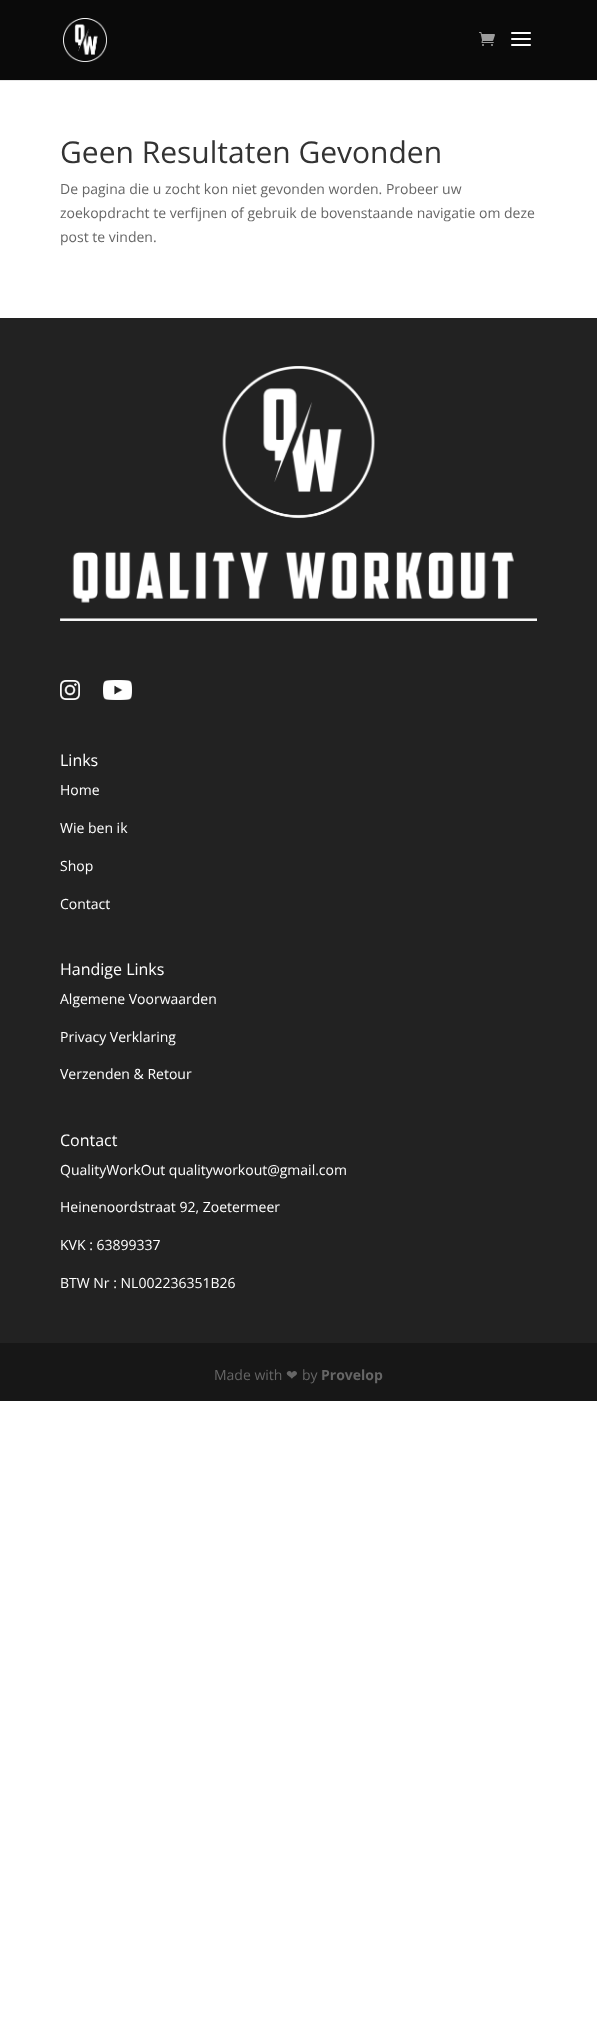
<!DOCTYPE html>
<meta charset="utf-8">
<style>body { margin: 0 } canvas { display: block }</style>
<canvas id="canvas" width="597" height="2033"></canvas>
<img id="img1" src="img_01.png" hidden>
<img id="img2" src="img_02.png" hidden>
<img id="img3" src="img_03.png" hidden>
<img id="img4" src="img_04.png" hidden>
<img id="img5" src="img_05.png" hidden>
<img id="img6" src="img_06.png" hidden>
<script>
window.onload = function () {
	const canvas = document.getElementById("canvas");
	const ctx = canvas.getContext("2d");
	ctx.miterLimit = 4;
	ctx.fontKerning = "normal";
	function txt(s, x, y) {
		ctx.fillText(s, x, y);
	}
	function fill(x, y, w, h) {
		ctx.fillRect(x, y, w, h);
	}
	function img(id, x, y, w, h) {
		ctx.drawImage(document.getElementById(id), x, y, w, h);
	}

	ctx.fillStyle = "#FFFFFF";
	fill(0, 0, 597, 2033);
	ctx.fillStyle = "#E6E6E6";
	fill(0, 80, 597, 1);
	ctx.fillStyle = "#0A0A0A";
	fill(0, 0, 597, 80);
	img("img1", 63, 18, 44, 44);
	img("img2", 479, 32, 16, 14);
	img("img3", 511, 32, 20, 14);
	ctx.fillStyle = "#222222";
	fill(0, 318, 597, 1025);
	img("img4", 60, 366, 477, 255);
	img("img5", 60, 680, 20, 20);
	img("img6", 103, 680, 29, 20);
	ctx.fillStyle = "#171717";
	fill(0, 1343, 597, 58);
	ctx.font = "30px Open Sans";
	ctx.fillStyle = "#333333";
	txt("Geen Resultaten Gevonden", 60, 163);
	ctx.font = "14px Open Sans";
	ctx.fillStyle = "#666666";
	txt("De pagina die u zocht kon niet gevonden worden. Probeer uw", 60, 194);
	txt("zoekopdracht te verfijnen of gebruik de bovenstaande navigatie om deze", 60, 218);
	txt("post te vinden.", 60, 242);
	ctx.font = "16px Open Sans";
	ctx.fillStyle = "#FFFFFF";
	txt("Links", 60, 766);
	ctx.font = "14px Open Sans";
	txt("Home", 60, 795);
	txt("Wie ben ik", 60, 833);
	txt("Shop", 60, 871);
	txt("Contact", 60, 909);
	ctx.font = "16px Open Sans";
	txt("Handige Links", 60, 975);
	ctx.font = "14px Open Sans";
	txt("Algemene Voorwaarden", 60, 1004);
	txt("Privacy Verklaring", 60, 1042);
	txt("Verzenden & Retour", 60, 1079);
	ctx.font = "16px Open Sans";
	txt("Contact", 60, 1146);
	ctx.font = "14px Open Sans";
	txt("QualityWorkOut qualityworkout@gmail.com", 60, 1175);
	txt("Heinenoordstraat 92, Zoetermeer", 60, 1212);
	txt("KVK : 63899337", 60, 1250);
	txt("BTW Nr : NL002236351B26", 60, 1288);
	ctx.fillStyle = "#666666";
	txt("Made with", 214, 1380);
	ctx.font = "14px DejaVu Sans";
	txt("❤", 286, 1380);
	ctx.font = "14px Open Sans";
	txt("by", 302, 1380);
	ctx.font = "bold 14px Open Sans";
	txt("Provelop", 321, 1380);
};
</script>
